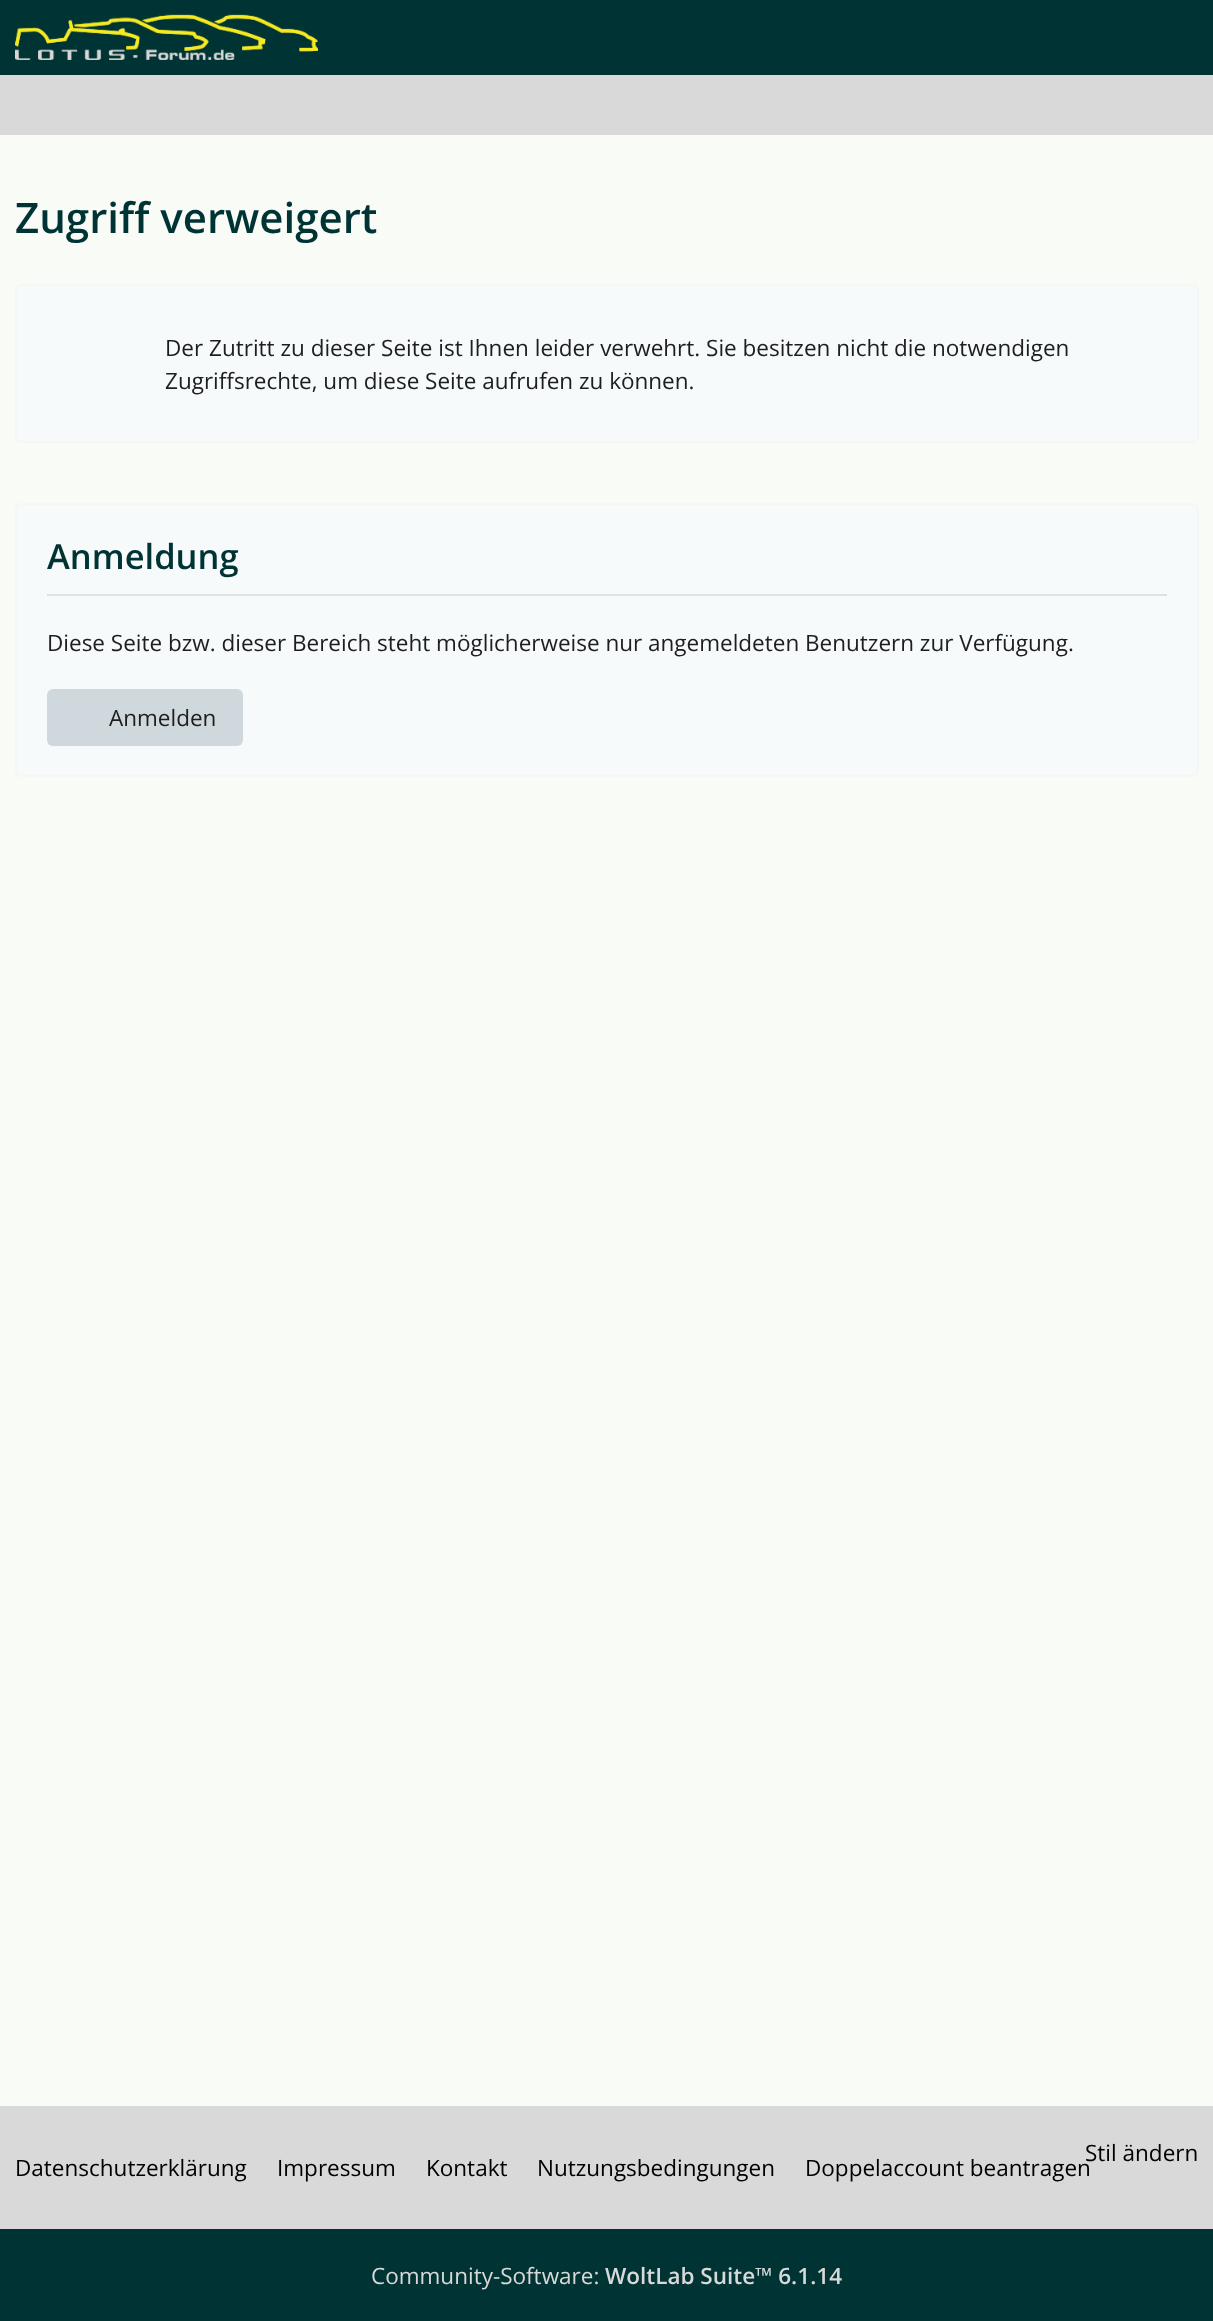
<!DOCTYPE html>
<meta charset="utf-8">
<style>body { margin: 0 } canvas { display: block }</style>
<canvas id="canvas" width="1213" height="2321"></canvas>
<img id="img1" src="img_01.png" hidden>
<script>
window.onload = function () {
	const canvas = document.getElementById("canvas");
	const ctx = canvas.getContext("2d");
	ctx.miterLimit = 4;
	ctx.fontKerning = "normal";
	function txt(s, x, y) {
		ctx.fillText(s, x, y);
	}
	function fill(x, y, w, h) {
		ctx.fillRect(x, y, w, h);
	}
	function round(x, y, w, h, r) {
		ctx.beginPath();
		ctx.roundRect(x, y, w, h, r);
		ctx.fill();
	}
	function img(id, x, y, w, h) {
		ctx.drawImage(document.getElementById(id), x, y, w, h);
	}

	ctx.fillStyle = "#F8FBF6";
	fill(0, 0, 1213, 2321);
	ctx.fillStyle = "#003333";
	fill(0, 0, 1213, 75);
	img("img1", 15, 14, 303, 46);
	ctx.fillStyle = "#D9D9D9";
	fill(0, 75, 1213, 60);
	ctx.fillStyle = "#F6FAFA";
	ctx.beginPath();
	ctx.roundRect(16, 285, 1182, 157, 5);
	ctx.fill();
	ctx.strokeStyle = "#F6F6F2";
	ctx.lineWidth = 2;
	ctx.stroke();
	ctx.beginPath();
	ctx.roundRect(16, 504, 1182, 272, 5);
	ctx.fill();
	ctx.stroke();
	ctx.fillStyle = "#E1E1E1";
	fill(47, 594, 1120, 2);
	ctx.fillStyle = "#CFD8DC";
	round(47, 689, 196, 57, 6);
	ctx.fillStyle = "#D9D9D9";
	fill(0, 2106, 1213, 123);
	ctx.fillStyle = "#003333";
	fill(0, 2229, 1213, 92);
	ctx.font = "600 42px Open Sans";
	txt("Zugriff verweigert", 15, 233);
	ctx.font = "22.5px Open Sans";
	ctx.fillStyle = "#1E1E1E";
	txt("Der Zutritt zu dieser Seite ist Ihnen leider verwehrt. Sie besitzen nicht die notwendigen", 165, 356);
	txt("Zugriffsrechte, um diese Seite aufrufen zu können.", 165, 389);
	ctx.font = "600 34.5px Open Sans";
	ctx.fillStyle = "#003333";
	txt("Anmeldung", 47, 569);
	ctx.font = "22.5px Open Sans";
	ctx.fillStyle = "#1E1E1E";
	txt("Diese Seite bzw. dieser Bereich steht möglicherweise nur angemeldeten Benutzern zur Verfügung.", 47, 651);
	txt("Anmelden", 109, 726);
	ctx.fillStyle = "#000000";
	txt("Stil ändern", 1085, 2161);
	txt("Datenschutzerklärung", 15, 2176);
	txt("Impressum", 277, 2176);
	txt("Kontakt", 426, 2176);
	txt("Nutzungsbedingungen", 537, 2176);
	txt("Doppelaccount beantragen", 805, 2176);
	ctx.fillStyle = "#D9D9D9";
	txt("Community-Software:", 371, 2284);
	ctx.font = "600 22.5px Open Sans";
	txt("WoltLab Suite™ 6.1.14", 605, 2284);
};
</script>
